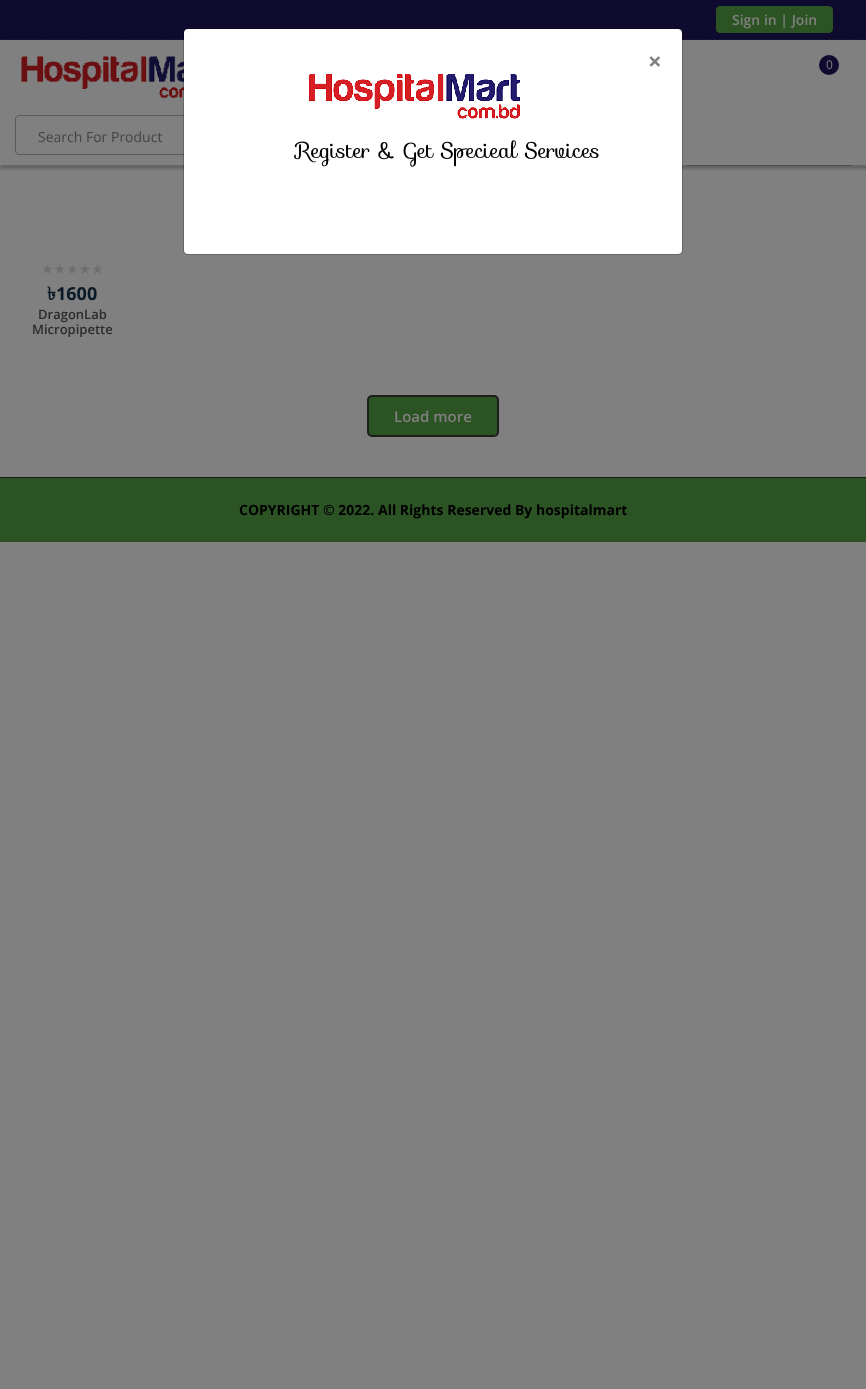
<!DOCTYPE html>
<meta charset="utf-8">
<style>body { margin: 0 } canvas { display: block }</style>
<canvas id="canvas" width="866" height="1389"></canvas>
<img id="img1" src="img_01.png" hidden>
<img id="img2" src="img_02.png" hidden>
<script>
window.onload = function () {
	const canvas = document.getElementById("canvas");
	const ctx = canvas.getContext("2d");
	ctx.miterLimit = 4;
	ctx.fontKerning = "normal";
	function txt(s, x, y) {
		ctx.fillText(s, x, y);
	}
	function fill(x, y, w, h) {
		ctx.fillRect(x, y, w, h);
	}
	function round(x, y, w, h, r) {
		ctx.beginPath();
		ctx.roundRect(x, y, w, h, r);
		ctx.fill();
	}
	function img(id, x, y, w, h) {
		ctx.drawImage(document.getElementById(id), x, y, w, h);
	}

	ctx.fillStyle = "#808080";
	fill(0, 0, 866, 1389);
	ctx.strokeStyle = "#606060";
	ctx.strokeRect(687.5, 136.5, 163, 29);
	ctx.fillStyle = "rgba(3, 3, 3, 0.22)";
	ctx.filter = "blur(1px)";
	ctx.beginPath();
	ctx.rect(0, 0, 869, 169);
	ctx.fill();
	ctx.filter = "none";
	ctx.fillStyle = "#0E0B2E";
	fill(0, 0, 866, 40);
	ctx.beginPath();
	ctx.moveTo(0, 39.5);
	ctx.lineTo(866, 39.5);
	ctx.strokeStyle = "#1A1736";
	ctx.setLineDash([3, 1.99]);
	ctx.stroke();
	ctx.fillStyle = "#2B5323";
	ctx.beginPath();
	ctx.roundRect(716.5, 6.5, 116, 26, 3.5);
	ctx.fill();
	ctx.strokeStyle = "#2B5323";
	ctx.setLineDash([]);
	ctx.stroke();
	ctx.fillStyle = "#808080";
	fill(0, 40, 866, 125);
	img("img1", 21, 56, 163, 43);
	ctx.fillStyle = "#0E0B2E";
	ctx.beginPath();
	ctx.arc(829, 65, 10, 0, Math.PI * 2);
	ctx.fill();
	ctx.beginPath();
	ctx.roundRect(15.5, 115.5, 626, 39, 3.5);
	ctx.strokeStyle = "#5A5A5A";
	ctx.stroke();
	ctx.fillStyle = "#FFFFFF";
	round(184, 29, 498, 225, 4);
	ctx.beginPath();
	ctx.roundRect(183.5, 28.5, 499, 226, 4.5);
	ctx.strokeStyle = "rgba(0, 0, 0, 0.2)";
	ctx.stroke();
	img("img2", 309, 74, 211, 45);
	ctx.fillStyle = "#2B5323";
	ctx.beginPath();
	ctx.roundRect(368, 396, 130, 40, 4);
	ctx.fill();
	ctx.strokeStyle = "#1C1E1A";
	ctx.lineWidth = 2;
	ctx.stroke();
	ctx.fillStyle = "#1C1E1A";
	fill(0, 477, 866, 1);
	ctx.fillStyle = "#2B5323";
	fill(0, 478, 866, 64);
	ctx.font = "600 14px Open Sans";
	ctx.fillStyle = "#808080";
	txt("Sign in | Join", 732, 25);
	ctx.font = "12px Open Sans";
	txt("0", 826, 69);
	ctx.font = "14px Open Sans";
	ctx.fillStyle = "#444444";
	txt("Search For Product", 38, 142);
	ctx.font = "bold 24px Open Sans";
	ctx.fillStyle = "#808080";
	txt("×", 648, 70);
	ctx.font = "22px Sofia";
	ctx.fillStyle = "#000000";
	txt("Register & Get Specieal Services", 296, 158);
	ctx.font = "14px DejaVu Sans";
	ctx.fillStyle = "#6F6F6F";
	txt("★★★★★", 41, 274);
	ctx.font = "bold 18px Lohit Bengali";
	ctx.fillStyle = "#0A1928";
	txt("৳", 47, 300);
	ctx.font = "bold 18px Open Sans";
	txt("1600", 56, 300);
	ctx.font = "600 13px Open Sans";
	ctx.fillStyle = "#2B2B2B";
	txt("DragonLab", 38, 319);
	txt("Micropipette", 32, 334);
	ctx.font = "600 15px Open Sans";
	ctx.fillStyle = "#808080";
	txt("Load more", 394, 422);
	ctx.font = "bold 14px Open Sans";
	ctx.fillStyle = "#000000";
	txt("COPYRIGHT © 2022. All Rights Reserved By hospitalmart", 239, 515);
};
</script>
